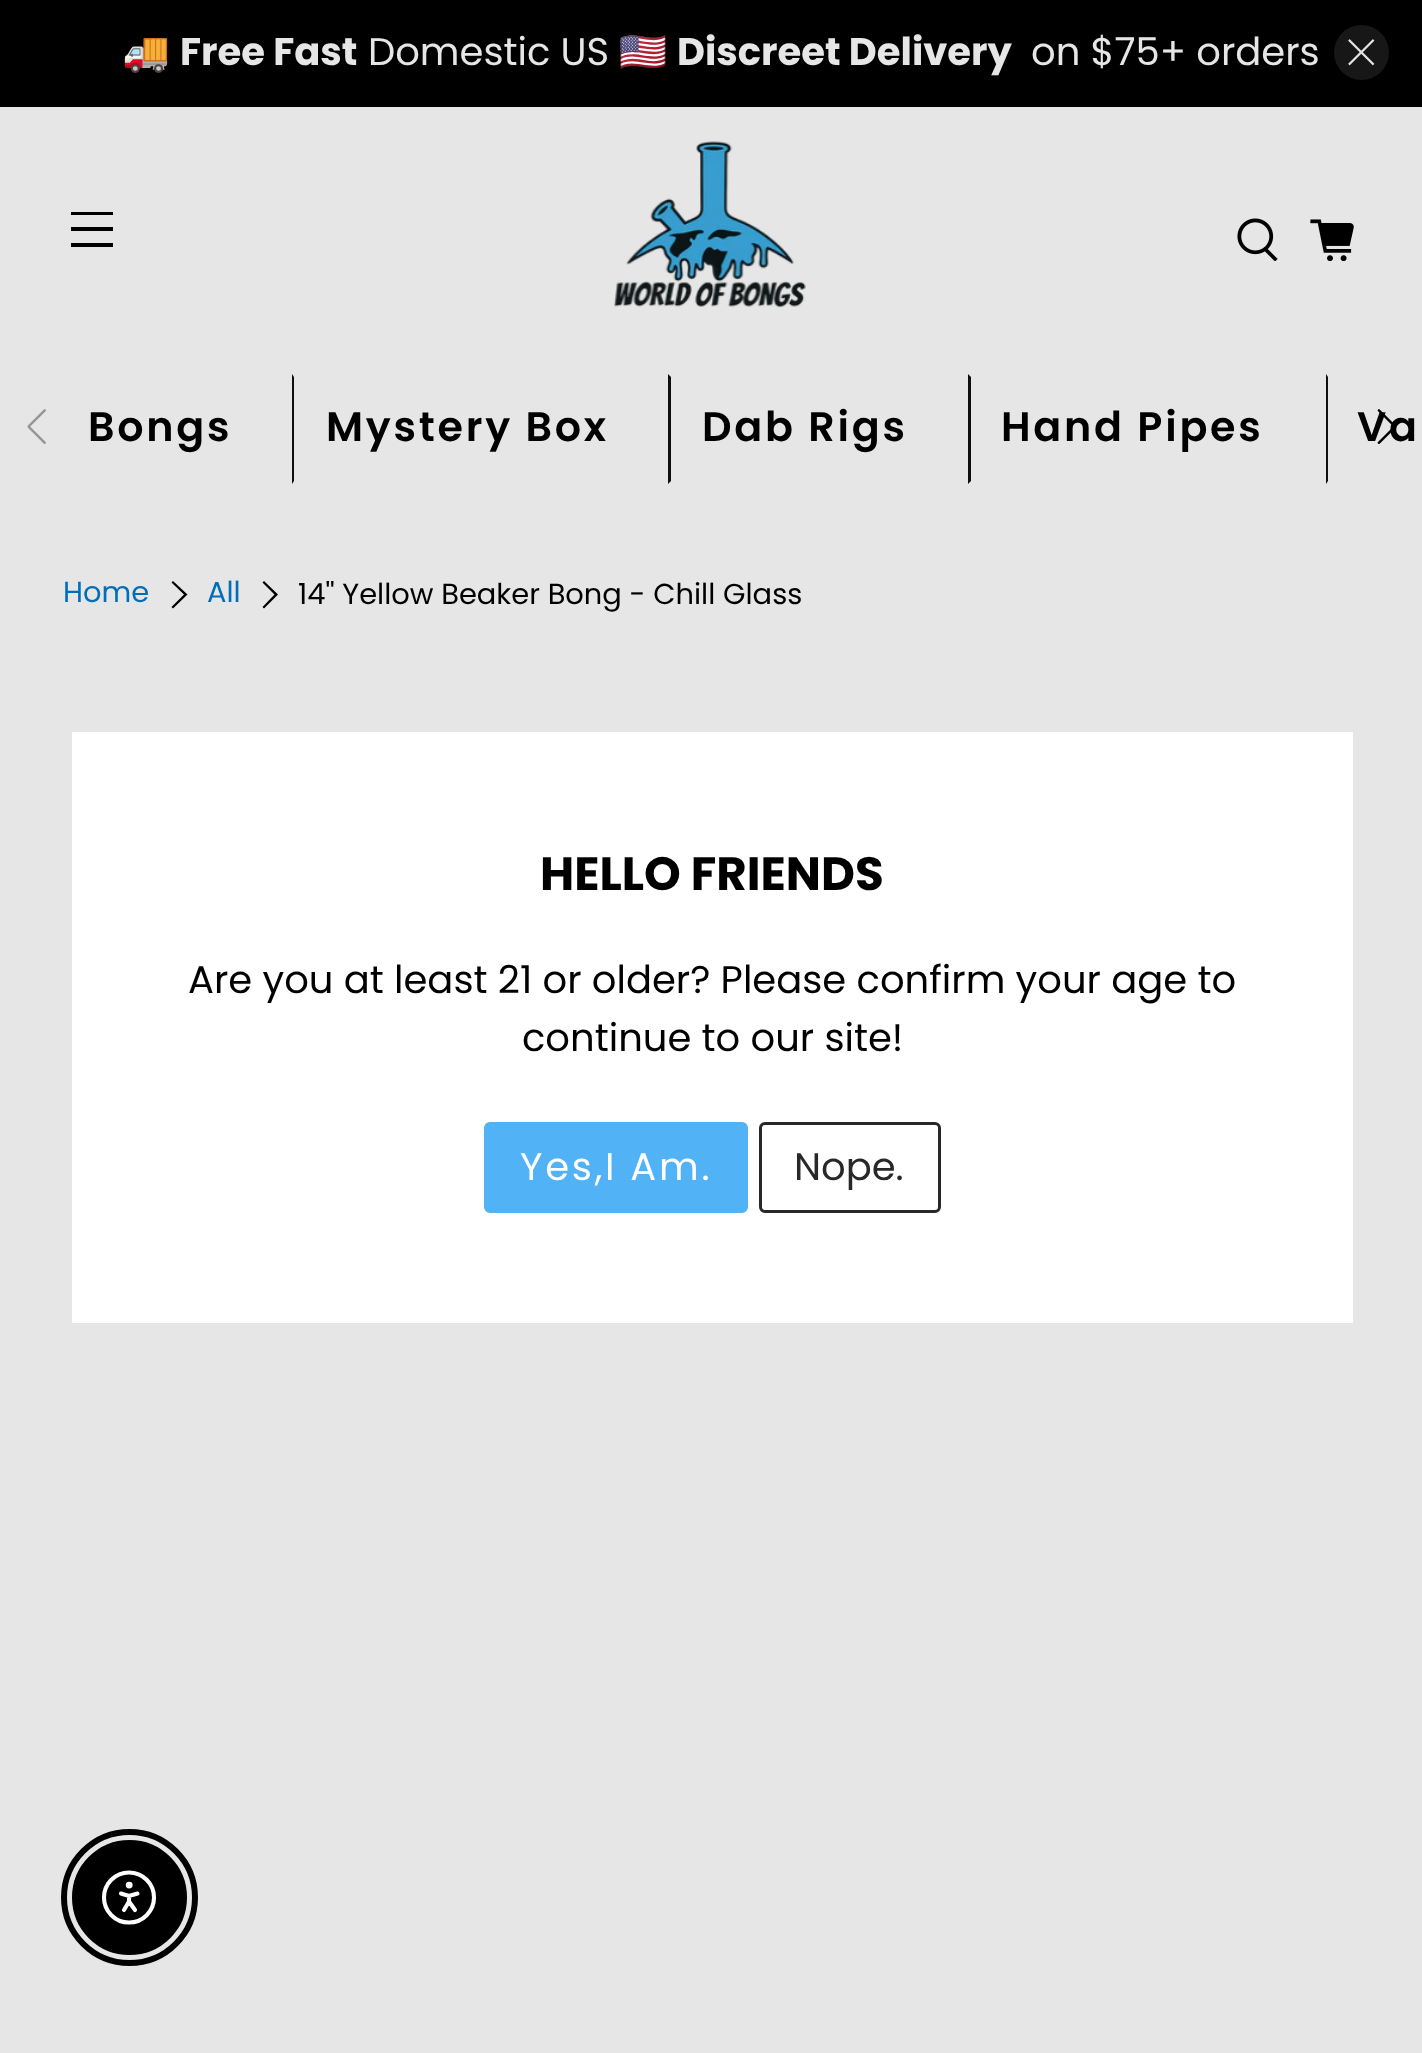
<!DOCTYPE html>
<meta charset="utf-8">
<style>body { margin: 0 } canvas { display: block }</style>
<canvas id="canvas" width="1422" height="2053"></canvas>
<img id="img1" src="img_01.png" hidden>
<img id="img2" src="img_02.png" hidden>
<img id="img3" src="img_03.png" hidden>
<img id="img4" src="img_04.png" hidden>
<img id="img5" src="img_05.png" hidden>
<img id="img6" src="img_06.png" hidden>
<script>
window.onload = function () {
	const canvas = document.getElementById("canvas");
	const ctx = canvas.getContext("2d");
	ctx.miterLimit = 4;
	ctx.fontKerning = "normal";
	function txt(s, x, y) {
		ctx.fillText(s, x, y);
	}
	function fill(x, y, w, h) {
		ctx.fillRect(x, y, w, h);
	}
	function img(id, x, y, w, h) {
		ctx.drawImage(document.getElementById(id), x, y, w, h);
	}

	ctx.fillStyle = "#E6E6E6";
	fill(0, 0, 1422, 2053);
	ctx.fillStyle = "#000000";
	fill(0, 0, 1422, 107);
	ctx.fillStyle = "#171717";
	ctx.beginPath();
	ctx.arc(1361.5, 52.5, 27.5, 0, Math.PI * 2);
	ctx.fill();
	img("img1", 1348, 39, 27, 27);
	ctx.fillStyle = "#000000";
	fill(71, 212, 42, 3);
	fill(71, 227, 42, 4);
	fill(71, 243, 42, 4);
	img("img2", 614, 141, 192, 167);
	img("img3", 1237, 218, 41, 43);
	img("img4", 1310, 219, 44, 42);
	img("img5", 27, 409, 19, 35);
	ctx.fillStyle = "#0F0F0F";
	ctx.beginPath();
	ctx.moveTo(292, 484);
	ctx.lineTo(292, 374);
	ctx.lineTo(294, 377);
	ctx.lineTo(294, 481);
	ctx.closePath();
	ctx.fill();
	ctx.beginPath();
	ctx.moveTo(668, 484);
	ctx.lineTo(668, 374);
	ctx.lineTo(671, 377);
	ctx.lineTo(671, 481);
	ctx.closePath();
	ctx.fill();
	ctx.beginPath();
	ctx.moveTo(968, 484);
	ctx.lineTo(968, 374);
	ctx.lineTo(971, 377);
	ctx.lineTo(971, 481);
	ctx.closePath();
	ctx.fill();
	ctx.beginPath();
	ctx.moveTo(1326, 484);
	ctx.lineTo(1326, 374);
	ctx.lineTo(1328, 377);
	ctx.lineTo(1328, 481);
	ctx.closePath();
	ctx.fill();
	ctx.fillStyle = "#000000";
	ctx.beginPath();
	ctx.moveTo(173, 608.5);
	ctx.lineTo(171.5, 607);
	ctx.lineTo(184, 594.5);
	ctx.lineTo(171.5, 582.5);
	ctx.lineTo(173, 581);
	ctx.lineTo(187.5, 594.5);
	ctx.closePath();
	ctx.fill();
	ctx.beginPath();
	ctx.moveTo(264, 608.5);
	ctx.lineTo(262.5, 607);
	ctx.lineTo(274.5, 594.5);
	ctx.lineTo(262.5, 582.5);
	ctx.lineTo(264, 581);
	ctx.lineTo(278, 594.5);
	ctx.closePath();
	ctx.fill();
	ctx.fillStyle = "#FFFFFF";
	fill(72, 732, 1281, 591);
	ctx.fillStyle = "#51B2F5";
	ctx.beginPath();
	ctx.roundRect(485.5, 1123.5, 261, 88, 4.5);
	ctx.fill();
	ctx.strokeStyle = "#51B2F5";
	ctx.lineWidth = 3;
	ctx.stroke();
	ctx.beginPath();
	ctx.roundRect(760.5, 1123.5, 179, 88, 4.5);
	ctx.strokeStyle = "#282828";
	ctx.stroke();
	ctx.beginPath();
	ctx.arc(129.5, 1897.5, 65.5, 0, Math.PI * 2);
	ctx.strokeStyle = "#000000";
	ctx.lineWidth = 6;
	ctx.stroke();
	ctx.fillStyle = "#000000";
	ctx.beginPath();
	ctx.arc(129.5, 1897.5, 56, 0, Math.PI * 2);
	ctx.fill();
	ctx.lineWidth = 3;
	ctx.stroke();
	ctx.beginPath();
	ctx.arc(129, 1897.5, 25, 0, Math.PI * 2);
	ctx.strokeStyle = "#FFFFFF";
	ctx.lineWidth = 4.1;
	ctx.stroke();
	ctx.fillStyle = "#FFFFFF";
	ctx.beginPath();
	ctx.arc(129.2, 1885.1, 1.4, 0, Math.PI * 2);
	ctx.fill();
	ctx.stroke();
	ctx.beginPath();
	ctx.moveTo(124, 1910);
	ctx.lineTo(129, 1901.5);
	ctx.lineTo(135, 1910);
	ctx.moveTo(129, 1901.5);
	ctx.lineTo(129, 1896);
	ctx.lineTo(137.5, 1893.5);
	ctx.moveTo(121, 1893.5);
	ctx.lineTo(129, 1896);
	ctx.lineCap = "round";
	ctx.lineJoin = "round";
	ctx.stroke();
	ctx.font = "38.5px Noto Color Emoji";
	ctx.fillStyle = "#E6E6E6";
	txt("🚚", 122, 65);
	ctx.font = "bold 38.5px Poppins";
	txt("Free Fast", 180, 65);
	ctx.font = "38.5px Poppins";
	txt("Domestic US", 368, 65);
	ctx.font = "38.5px Noto Color Emoji";
	txt("🇺🇸", 619, 65);
	ctx.font = "bold 38.5px Poppins";
	txt("Discreet Delivery", 677, 65);
	ctx.font = "38.5px Poppins";
	txt("on $75+ orders", 1031, 65);
	ctx.letterSpacing = "2.75px";
	ctx.font = "600 41.25px Poppins";
	ctx.fillStyle = "#000000";
	txt("Bongs", 88, 441);
	txt("Mystery Box", 326, 441);
	txt("Dab Rigs", 702, 441);
	txt("Hand Pipes", 1001, 441);
	txt("Va", 1357, 441);
	img("img6", 1377, 409, 16, 35);
	ctx.letterSpacing = "0px";
	ctx.font = "28.9px Poppins";
	ctx.fillStyle = "#006EB9";
	txt("Home", 63, 602);
	txt("All", 207, 602);
	ctx.fillStyle = "#000000";
	txt("14'' Yellow Beaker Bong - Chill Glass", 298, 604);
	ctx.font = "bold 46.75px Poppins";
	txt("HELLO FRIENDS", 540, 890);
	ctx.font = "38.5px Poppins";
	txt("Are you at least 21 or older? Please confirm your age to", 188, 993);
	txt("continue to our site!", 522, 1051);
	ctx.letterSpacing = "2.75px";
	ctx.fillStyle = "#FFFFFF";
	txt("Yes,I Am.", 520, 1180);
	ctx.letterSpacing = "0px";
	ctx.fillStyle = "#282828";
	txt("Nope.", 794, 1180);
};
</script>
